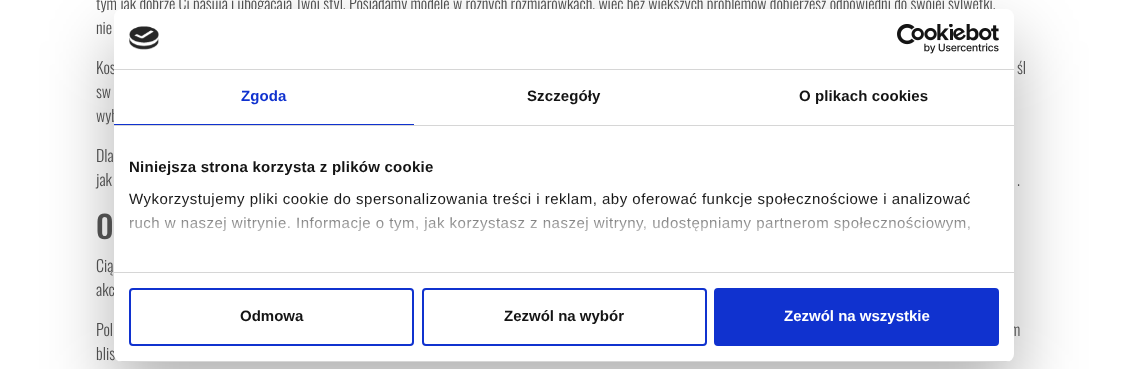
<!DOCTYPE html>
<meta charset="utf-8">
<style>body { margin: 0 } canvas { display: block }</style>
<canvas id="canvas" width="1128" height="369"></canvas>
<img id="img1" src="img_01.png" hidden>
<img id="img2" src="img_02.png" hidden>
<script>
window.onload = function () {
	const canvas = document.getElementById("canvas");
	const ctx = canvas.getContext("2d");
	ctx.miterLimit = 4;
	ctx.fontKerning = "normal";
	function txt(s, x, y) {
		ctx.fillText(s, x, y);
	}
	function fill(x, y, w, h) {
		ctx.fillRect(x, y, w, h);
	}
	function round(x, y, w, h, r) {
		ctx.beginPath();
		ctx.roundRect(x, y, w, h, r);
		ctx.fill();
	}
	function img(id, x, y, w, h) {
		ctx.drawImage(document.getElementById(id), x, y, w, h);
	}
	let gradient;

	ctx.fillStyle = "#FFFFFF";
	fill(0, 0, 1128, 369);
	ctx.fillStyle = "rgba(0, 0, 0, 0.3)";
	ctx.filter = "blur(34px)";
	ctx.beginPath();
	ctx.roundRect(114, 41, 900, 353, 8);
	ctx.fill();
	ctx.filter = "none";
	ctx.font = "300 16px Oswald";
	ctx.fillStyle = "#4D4D4D";
	txt("tym jak dobrze Ci pasują i ubogacają Twój styl. Posiadamy modele w różnych rozmiarówkach, więc bez większych problemów dobierzesz odpowiedni do swojej sylwetki,", 96, 10);
	txt("nie", 96, 34);
	txt("Kos", 96, 74);
	txt("śl", 1017, 74);
	txt("sw", 96, 98);
	txt("wyb", 96, 122);
	txt("Dla", 96, 162);
	txt("jak", 96, 186);
	txt(".", 1017, 186);
	ctx.font = "500 31px Oswald";
	txt("O", 96, 239);
	ctx.font = "300 16px Oswald";
	txt("Cią", 96, 272);
	txt("akc", 96, 296);
	txt("Pol", 96, 336);
	txt("m", 1010, 336);
	txt("blis", 96, 360);
	ctx.fillStyle = "#FFFFFF";
	round(114, 9, 900, 353, 8);
	ctx.fillStyle = "#D6D6D6";
	fill(114, 69, 900, 1);
	img("img1", 129, 26, 30, 24);
	img("img2", 897, 24, 102, 30);
	fill(114, 125, 900, 1);
	ctx.fillStyle = "#1032CF";
	fill(114, 124, 300, 1);
	ctx.letterSpacing = "0.1px";
	ctx.font = "bold 15px Liberation Sans";
	txt("Zgoda", 241, 101);
	ctx.fillStyle = "#141414";
	txt("Szczegóły", 527, 101);
	txt("O plikach cookies", 799, 101);
	ctx.fillStyle = "#D6D6D6";
	fill(114, 272, 900, 1);
	ctx.letterSpacing = "0.25px";
	ctx.fillStyle = "#141414";
	txt("Niniejsza strona korzysta z plików cookie", 129, 172);
	ctx.letterSpacing = "0.5px";
	ctx.font = "15px Liberation Sans";
	txt("Wykorzystujemy pliki cookie do spersonalizowania treści i reklam, aby oferować funkcje społecznościowe i analizować", 129, 204);
	txt("ruch w naszej witrynie. Informacje o tym, jak korzystasz z naszej witryny, udostępniamy partnerom społecznościowym,", 129, 228);
	gradient = ctx.createLinearGradient(558, 272, 558, 199);
	gradient.addColorStop(0, "#FFFFFF");
	gradient.addColorStop(0.5, "rgba(255, 255, 255, 0.8)");
	gradient.addColorStop(1, "rgba(255, 255, 255, 0)");
	ctx.fillStyle = gradient;
	fill(130, 200, 840, 32);
	ctx.save();
	ctx.beginPath();
	ctx.roundRect(114, 9, 900, 353, 8);
	ctx.clip();
	ctx.fillStyle = "#D6D6D6";
	fill(114, 361, 900, 1);
	ctx.restore();
	ctx.beginPath();
	ctx.roundRect(130, 289, 283, 56, 3);
	ctx.strokeStyle = "#1032CF";
	ctx.lineWidth = 2;
	ctx.stroke();
	ctx.letterSpacing = "0px";
	ctx.font = "bold 15px Liberation Sans";
	ctx.fillStyle = "#141414";
	txt("Odmowa", 240, 321);
	ctx.beginPath();
	ctx.roundRect(423, 289, 283, 56, 3);
	ctx.stroke();
	txt("Zezwól na wybór", 504, 321);
	ctx.fillStyle = "#1032CF";
	ctx.beginPath();
	ctx.roundRect(715, 289, 283, 56, 3);
	ctx.fill();
	ctx.stroke();
	ctx.fillStyle = "#FFFFFF";
	txt("Zezwól na wszystkie", 784, 321);
};
</script>
